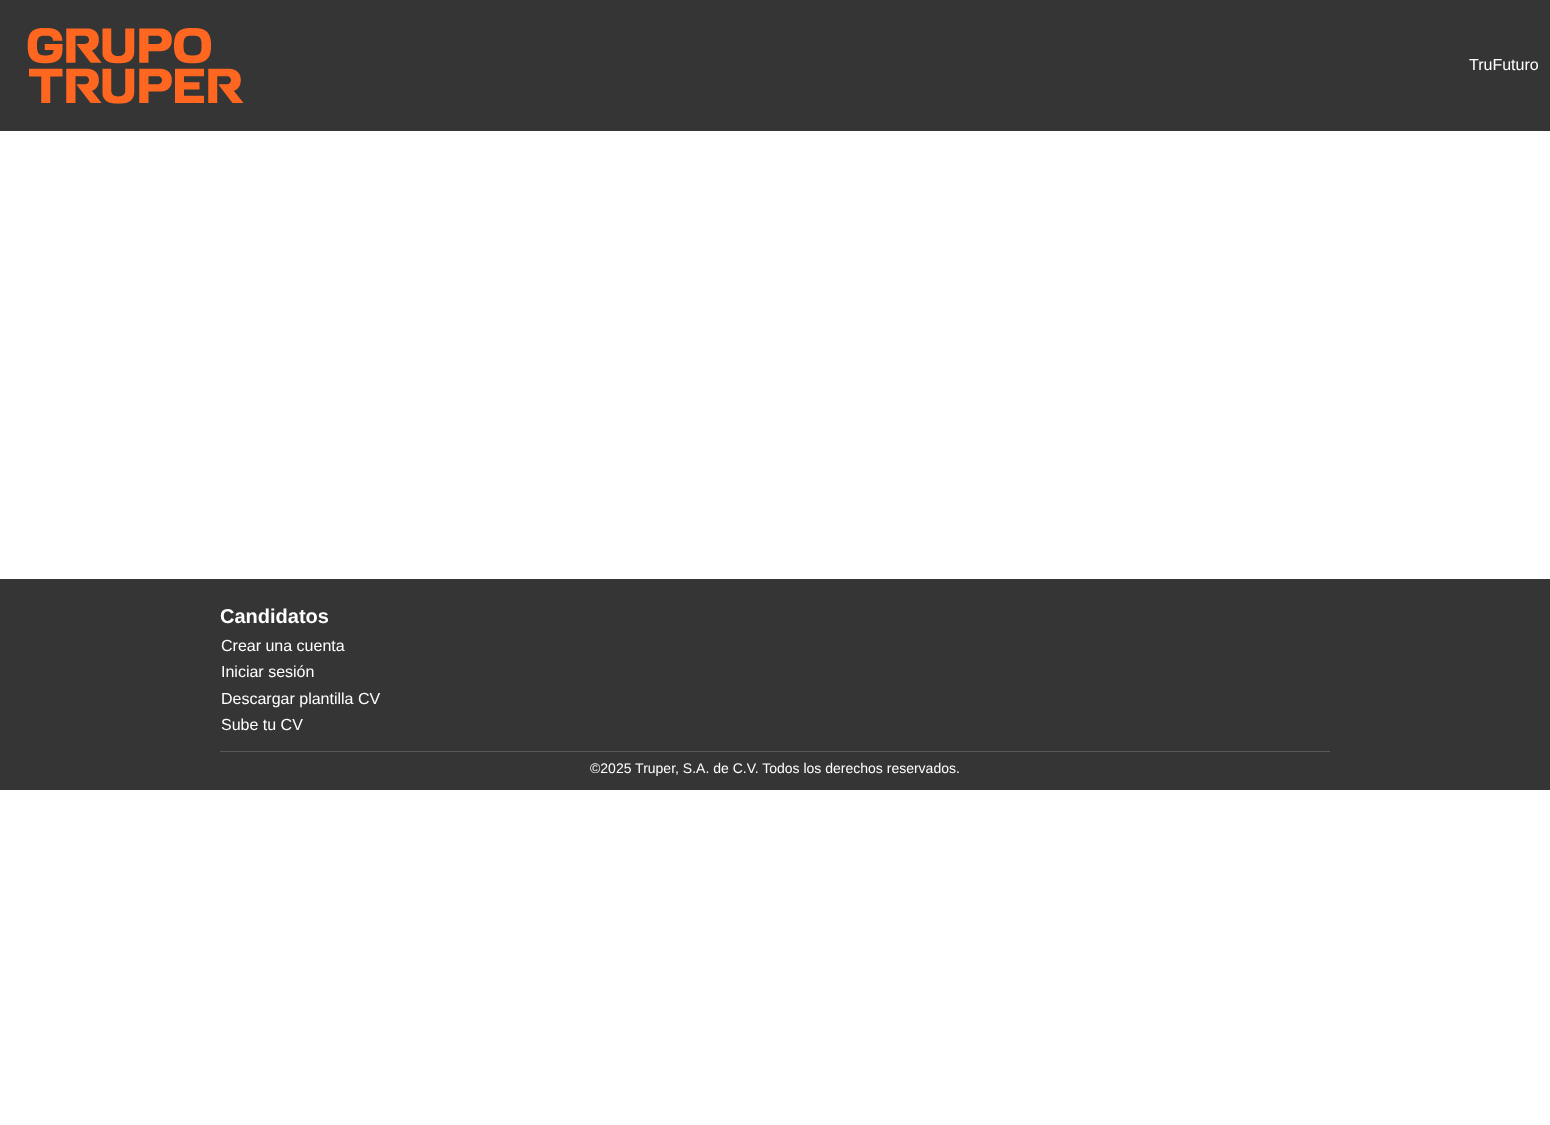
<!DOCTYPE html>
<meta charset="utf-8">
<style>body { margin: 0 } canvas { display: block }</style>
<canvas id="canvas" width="1550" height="1125"></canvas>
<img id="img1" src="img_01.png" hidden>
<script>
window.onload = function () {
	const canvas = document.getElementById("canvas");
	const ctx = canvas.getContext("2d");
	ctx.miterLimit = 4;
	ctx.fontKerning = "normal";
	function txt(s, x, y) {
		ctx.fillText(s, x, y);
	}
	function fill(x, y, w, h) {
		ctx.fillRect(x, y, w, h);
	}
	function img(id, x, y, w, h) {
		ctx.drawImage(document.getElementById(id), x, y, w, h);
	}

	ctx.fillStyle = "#FFFFFF";
	fill(0, 0, 1550, 1125);
	ctx.fillStyle = "#353535";
	fill(0, 0, 1550, 131);
	img("img1", 27, 28, 217, 76);
	fill(0, 579, 1550, 211);
	ctx.fillStyle = "#595959";
	fill(220, 751, 1110, 1);
	ctx.font = "16px Liberation Sans";
	ctx.fillStyle = "#FFFFFF";
	txt("TruFuturo", 1469, 70);
	ctx.font = "bold 20px Liberation Sans";
	txt("Candidatos", 220, 623);
	ctx.font = "16px Liberation Sans";
	txt("Crear una cuenta", 221, 651);
	txt("Iniciar sesión", 221, 677);
	txt("Descargar plantilla CV", 221, 704);
	txt("Sube tu CV", 221, 730);
	ctx.font = "14px Liberation Sans";
	txt("©2025 Truper, S.A. de C.V. Todos los derechos reservados.", 590, 773);
};
</script>
